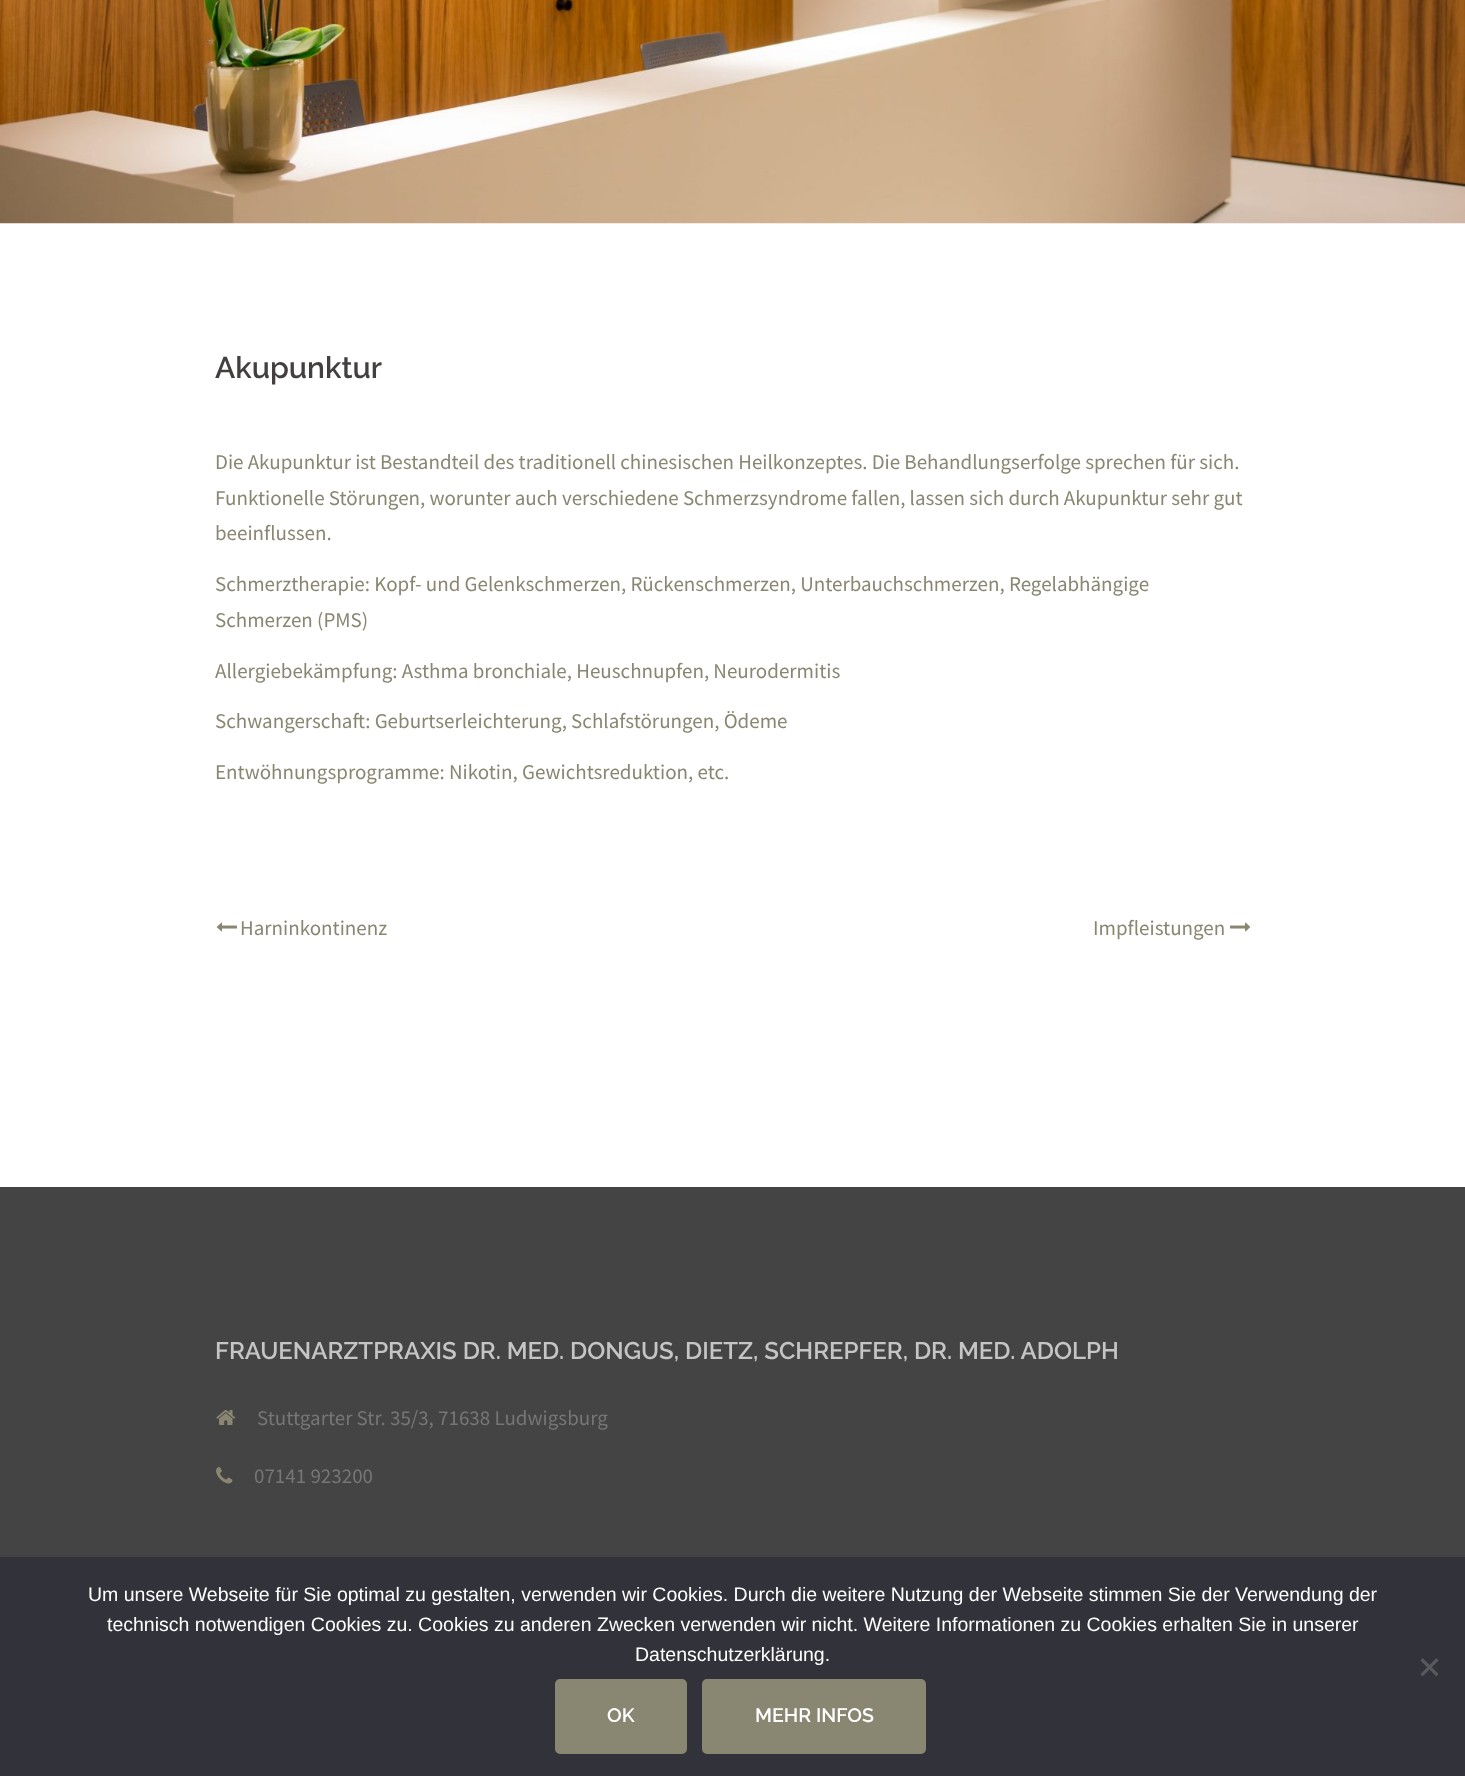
<!DOCTYPE html>
<meta charset="utf-8">
<style>body { margin: 0 } canvas { display: block }</style>
<canvas id="canvas" width="1465" height="1776"></canvas>
<img id="img1" src="img_01.png" hidden>
<img id="img2" src="img_02.png" hidden>
<img id="img3" src="img_03.png" hidden>
<img id="img4" src="img_04.png" hidden>
<img id="img5" src="img_05.png" hidden>
<script>
window.onload = function () {
	const canvas = document.getElementById("canvas");
	const ctx = canvas.getContext("2d");
	ctx.miterLimit = 4;
	ctx.fontKerning = "normal";
	function txt(s, x, y) {
		ctx.fillText(s, x, y);
	}
	function fill(x, y, w, h) {
		ctx.fillRect(x, y, w, h);
	}
	function img(id, x, y, w, h) {
		ctx.drawImage(document.getElementById(id), x, y, w, h);
	}

	ctx.fillStyle = "#FFFFFF";
	fill(0, 0, 1465, 1776);
	img("img1", 0, 0, 1465, 224);
	img("img2", 216, 922, 21, 10);
	img("img3", 1230, 922, 21, 10);
	ctx.fillStyle = "#444444";
	fill(0, 1187, 1465, 370);
	img("img4", 216, 1410, 20, 15);
	img("img5", 216, 1467, 17, 17);
	ctx.fillStyle = "#32323A";
	fill(0, 1557, 1465, 219);
	ctx.fillStyle = "#59595D";
	ctx.beginPath();
	ctx.moveTo(1436.5, 1658);
	ctx.lineTo(1438.5, 1660.5);
	ctx.lineTo(1422.5, 1676.5);
	ctx.lineTo(1420.5, 1674);
	ctx.closePath();
	ctx.fill();
	ctx.beginPath();
	ctx.moveTo(1420.5, 1660.5);
	ctx.lineTo(1422.5, 1658);
	ctx.lineTo(1438.5, 1674);
	ctx.lineTo(1436.5, 1676.5);
	ctx.closePath();
	ctx.fill();
	ctx.fillStyle = "#898672";
	ctx.beginPath();
	ctx.roundRect(556, 1680, 130, 73, 4);
	ctx.fill();
	ctx.strokeStyle = "#898672";
	ctx.lineWidth = 2;
	ctx.stroke();
	ctx.beginPath();
	ctx.roundRect(703, 1680, 222, 73, 4);
	ctx.fill();
	ctx.stroke();
	ctx.font = "600 30px Raleway";
	ctx.fillStyle = "#443F3F";
	txt("Akupunktur", 215, 378);
	ctx.font = "21px Source Sans Pro";
	ctx.fillStyle = "#898672";
	txt("Die Akupunktur ist Bestandteil des traditionell chinesischen Heilkonzeptes. Die Behandlungserfolge sprechen für sich.", 215, 469);
	txt("Funktionelle Störungen, worunter auch verschiedene Schmerzsyndrome fallen, lassen sich durch Akupunktur sehr gut", 215, 505);
	txt("beeinflussen.", 215, 540);
	txt("Schmerztherapie: Kopf- und Gelenkschmerzen, Rückenschmerzen, Unterbauchschmerzen, Regelabhängige", 215, 591);
	txt("Schmerzen (PMS)", 215, 627);
	txt("Allergiebekämpfung: Asthma bronchiale, Heuschnupfen, Neurodermitis", 215, 678);
	txt("Schwangerschaft: Geburtserleichterung, Schlafstörungen, Ödeme", 215, 728);
	txt("Entwöhnungsprogramme: Nikotin, Gewichtsreduktion, etc.", 215, 779);
	txt("Harninkontinenz", 240, 935);
	txt("Impfleistungen", 1093, 935);
	ctx.font = "600 24px Raleway";
	ctx.fillStyle = "#C5C5C5";
	txt("FRAUENARZTPRAXIS DR. MED. DONGUS, DIETZ, SCHREPFER, DR. MED. ADOLPH", 215, 1359);
	ctx.font = "21px Source Sans Pro";
	ctx.fillStyle = "#767676";
	txt("Stuttgarter Str. 35/3, 71638 Ludwigsburg", 257, 1425);
	txt("07141 923200", 254, 1483);
	ctx.font = "19.5px Liberation Sans";
	ctx.fillStyle = "#FFFFFF";
	txt("Um unsere Webseite für Sie optimal zu gestalten, verwenden wir Cookies. Durch die weitere Nutzung der Webseite stimmen Sie der Verwendung der", 88, 1601);
	txt("technisch notwendigen Cookies zu. Cookies zu anderen Zwecken verwenden wir nicht. Weitere Informationen zu Cookies erhalten Sie in unserer", 107, 1631);
	txt("Datenschutzerklärung.", 635, 1661);
	ctx.font = "600 19.5px Raleway";
	txt("OK", 607, 1722);
	txt("MEHR INFOS", 755, 1722);
};
</script>
